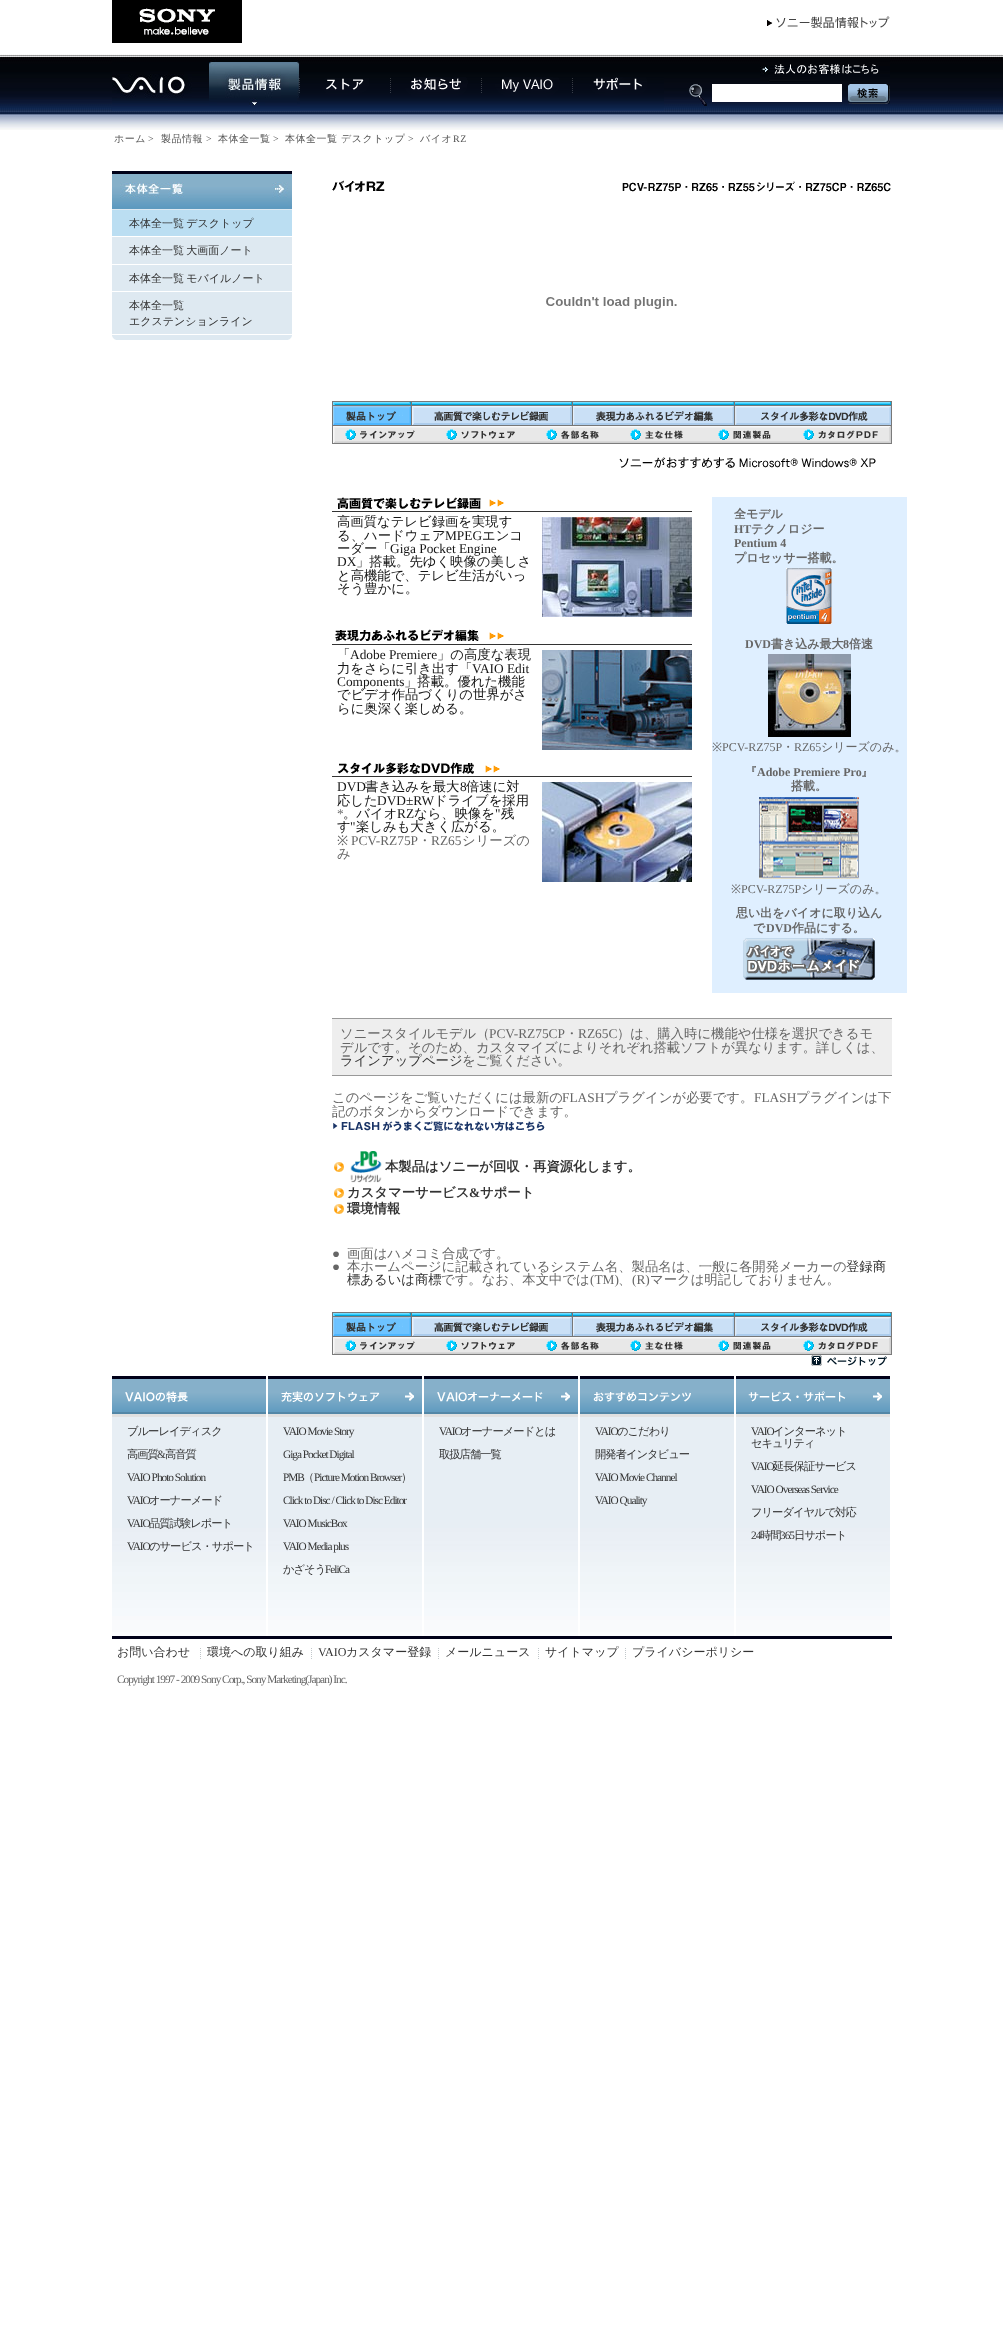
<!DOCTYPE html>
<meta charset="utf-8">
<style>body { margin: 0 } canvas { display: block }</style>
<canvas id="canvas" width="1003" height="2340"></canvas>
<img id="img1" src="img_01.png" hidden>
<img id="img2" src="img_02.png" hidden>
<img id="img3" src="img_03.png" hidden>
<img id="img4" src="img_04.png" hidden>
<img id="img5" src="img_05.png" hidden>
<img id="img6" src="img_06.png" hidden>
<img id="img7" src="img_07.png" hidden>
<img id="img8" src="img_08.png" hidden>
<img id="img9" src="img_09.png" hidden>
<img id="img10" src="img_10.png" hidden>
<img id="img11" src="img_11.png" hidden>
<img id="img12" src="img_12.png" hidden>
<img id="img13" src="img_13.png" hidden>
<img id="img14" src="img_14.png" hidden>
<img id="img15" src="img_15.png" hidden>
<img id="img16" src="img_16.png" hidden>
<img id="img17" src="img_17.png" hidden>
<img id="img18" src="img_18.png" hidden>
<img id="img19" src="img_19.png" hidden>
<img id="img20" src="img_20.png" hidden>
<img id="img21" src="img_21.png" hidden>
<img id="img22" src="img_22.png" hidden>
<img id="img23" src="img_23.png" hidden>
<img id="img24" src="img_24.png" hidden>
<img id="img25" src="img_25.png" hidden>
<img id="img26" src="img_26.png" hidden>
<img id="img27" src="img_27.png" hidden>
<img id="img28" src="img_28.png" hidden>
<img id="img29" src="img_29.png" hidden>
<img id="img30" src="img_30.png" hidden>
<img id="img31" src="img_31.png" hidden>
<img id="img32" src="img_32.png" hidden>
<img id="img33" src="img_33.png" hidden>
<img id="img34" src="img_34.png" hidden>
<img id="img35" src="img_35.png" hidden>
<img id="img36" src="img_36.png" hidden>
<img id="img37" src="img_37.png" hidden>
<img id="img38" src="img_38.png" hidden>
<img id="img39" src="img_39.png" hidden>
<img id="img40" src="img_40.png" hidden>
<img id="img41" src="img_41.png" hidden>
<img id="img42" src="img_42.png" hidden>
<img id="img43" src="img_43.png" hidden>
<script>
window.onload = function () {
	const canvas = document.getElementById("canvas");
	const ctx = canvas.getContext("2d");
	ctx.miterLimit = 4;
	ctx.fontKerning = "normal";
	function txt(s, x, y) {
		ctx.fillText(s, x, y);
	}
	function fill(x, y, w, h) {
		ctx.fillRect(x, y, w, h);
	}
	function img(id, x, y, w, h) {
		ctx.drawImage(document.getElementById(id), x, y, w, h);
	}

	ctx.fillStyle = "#FFFFFF";
	fill(0, 0, 1003, 2340);
	img("img1", 0, 54, 1003, 76);
	img("img2", 112, 0, 130, 43);
	img("img3", 767, 16, 123, 12);
	img("img4", 112, 58, 97, 53);
	img("img5", 209, 58, 91, 53);
	img("img6", 300, 78, 91, 33);
	img("img7", 391, 77, 91, 34);
	img("img8", 482, 77, 91, 34);
	img("img9", 573, 77, 91, 34);
	img("img10", 760, 58, 130, 24);
	img("img11", 689, 84, 18, 22);
	fill(712, 84, 130, 18);
	img("img12", 848, 84, 42, 20);
	ctx.fillStyle = "#DEE9F1";
	fill(112, 209, 180, 127);
	ctx.fillStyle = "#000018";
	fill(112, 171, 180, 3);
	img("img13", 112, 174, 180, 35);
	ctx.fillStyle = "#BBDEF2";
	fill(112, 210, 180, 26);
	ctx.fillStyle = "#FFFFFF";
	fill(112, 236, 180, 1);
	fill(112, 264, 180, 1);
	fill(112, 291, 180, 1);
	fill(112, 334, 180, 1);
	img("img14", 112, 336, 180, 4);
	img("img15", 332, 180, 559, 12);
	img("img16", 546, 297, 131, 12);
	img("img17", 332, 401, 79, 25);
	img("img18", 411, 401, 161, 25);
	img("img19", 572, 401, 162, 25);
	img("img20", 734, 401, 158, 25);
	img("img21", 332, 426, 560, 18);
	img("img22", 619, 457, 257, 12);
	img("img23", 337, 497, 167, 12);
	ctx.fillStyle = "#333333";
	fill(332, 511, 360, 1);
	img("img24", 542, 517, 150, 100);
	img("img25", 335, 629, 169, 13);
	fill(332, 644, 360, 1);
	img("img26", 542, 650, 150, 100);
	img("img27", 337, 762, 163, 12);
	fill(332, 776, 360, 1);
	img("img28", 542, 782, 150, 100);
	ctx.fillStyle = "#DFEFFF";
	fill(712, 497, 195, 496);
	img("img29", 786, 568, 46, 56);
	img("img30", 768, 654, 83, 83);
	img("img31", 759, 797, 100, 82);
	img("img32", 743, 938, 132, 42);
	ctx.fillStyle = "#999999";
	fill(332, 1018, 560, 1);
	ctx.fillStyle = "#EEEEEE";
	fill(332, 1019, 560, 56);
	ctx.fillStyle = "#999999";
	fill(332, 1075, 560, 1);
	img("img33", 333, 1121, 212, 10);
	img("img34", 334, 1162, 10, 10);
	img("img35", 350, 1151, 32, 32);
	img("img34", 334, 1188, 10, 10);
	img("img34", 334, 1204, 10, 10);
	img("img17", 332, 1312, 79, 25);
	img("img18", 411, 1312, 161, 25);
	img("img19", 572, 1312, 162, 25);
	img("img20", 734, 1312, 158, 25);
	img("img21", 332, 1337, 560, 18);
	img("img36", 811, 1355, 76, 11);
	img("img37", 112, 1417, 154, 219);
	img("img38", 112, 1376, 154, 41);
	img("img37", 268, 1417, 154, 219);
	img("img39", 268, 1376, 154, 41);
	img("img37", 424, 1417, 154, 219);
	img("img40", 424, 1376, 154, 41);
	img("img37", 580, 1417, 154, 219);
	img("img41", 580, 1376, 154, 41);
	img("img37", 736, 1417, 154, 219);
	img("img42", 736, 1376, 154, 41);
	ctx.fillStyle = "#000018";
	fill(112, 1636, 780, 3);
	img("img43", 200, 1648, 1, 11);
	img("img43", 311, 1648, 1, 11);
	img("img43", 438, 1648, 1, 11);
	img("img43", 538, 1648, 1, 11);
	img("img43", 625, 1648, 1, 11);
	ctx.letterSpacing = "0.5px";
	ctx.font = "500 10px WenQuanYi Zen Hei";
	ctx.fillStyle = "#555555";
	txt("ホーム", 114, 142);
	ctx.font = "10px Liberation Serif";
	txt(">", 148, 142);
	ctx.font = "500 10px WenQuanYi Zen Hei";
	txt("製品情報", 161, 142);
	ctx.font = "10px Liberation Serif";
	txt(">", 206, 142);
	ctx.font = "500 10px WenQuanYi Zen Hei";
	txt("本体全一覧", 218, 142);
	ctx.font = "10px Liberation Serif";
	txt(">", 273, 142);
	ctx.font = "500 10px WenQuanYi Zen Hei";
	txt("本体全一覧 デスクトップ", 285, 142);
	ctx.font = "10px Liberation Serif";
	txt(">", 408, 142);
	ctx.font = "500 10px WenQuanYi Zen Hei";
	txt("バイオ", 420, 142);
	ctx.font = "10px Liberation Serif";
	txt("RZ", 453, 142);
	ctx.letterSpacing = "0px";
	ctx.wordSpacing = "-1px";
	ctx.font = "500 11px WenQuanYi Zen Hei";
	ctx.fillStyle = "#333333";
	txt("本体全一覧 デスクトップ", 129, 227);
	txt("本体全一覧 大画面ノート", 129, 254);
	txt("本体全一覧 モバイルノート", 129, 282);
	ctx.wordSpacing = "0px";
	txt("本体全一覧", 129, 309);
	txt("エクステンションライン", 129, 325);
	ctx.font = "500 13.35px WenQuanYi Zen Hei";
	ctx.fillStyle = "#151515";
	txt("高画質なテレビ録画を実現す", 337, 526);
	txt("る、ハードウェア", 337, 540);
	ctx.font = "13.35px Liberation Serif";
	txt("MPEG", 445, 540);
	ctx.font = "500 13.35px WenQuanYi Zen Hei";
	txt("エンコ", 482, 540);
	txt("ーダー「", 337, 553);
	ctx.font = "13.35px Liberation Serif";
	txt("Giga Pocket Engine", 390, 553);
	txt("DX", 337, 566);
	ctx.font = "500 13.35px WenQuanYi Zen Hei";
	txt("」搭載。先ゆく映像の美しさ", 356, 566);
	txt("と高機能で、テレビ生活がいっ", 337, 580);
	txt("そう豊かに。", 337, 593);
	txt("「", 337, 659);
	ctx.font = "13.35px Liberation Serif";
	txt("Adobe Premiere", 350, 659);
	ctx.font = "500 13.35px WenQuanYi Zen Hei";
	txt("」の高度な表現", 437, 659);
	txt("力をさらに引き出す「", 337, 673);
	ctx.font = "13.35px Liberation Serif";
	txt("VAIO Edit", 472, 673);
	txt("Components", 337, 686);
	ctx.font = "500 13.35px WenQuanYi Zen Hei";
	txt("」搭載。優れた機能", 404, 686);
	txt("でビデオ作品づくりの世界がさ", 337, 699);
	txt("らに奥深く楽しめる。", 337, 713);
	ctx.font = "13.35px Liberation Serif";
	txt("DVD", 337, 791);
	ctx.font = "500 13.35px WenQuanYi Zen Hei";
	txt("書き込みを最大", 365, 791);
	ctx.font = "13.35px Liberation Serif";
	txt("8", 460, 791);
	ctx.font = "500 13.35px WenQuanYi Zen Hei";
	txt("倍速に対", 466, 791);
	txt("応した", 337, 805);
	ctx.font = "13.35px Liberation Serif";
	txt("DVD±RW", 377, 805);
	ctx.font = "500 13.35px WenQuanYi Zen Hei";
	txt("ドライブを採用", 434, 805);
	ctx.font = "13.35px Liberation Serif";
	ctx.fillStyle = "#666666";
	txt("*", 337, 818);
	ctx.font = "500 13.35px WenQuanYi Zen Hei";
	ctx.fillStyle = "#151515";
	txt("。バイオ", 343, 818);
	ctx.font = "13.35px Liberation Serif";
	txt("RZ", 397, 818);
	ctx.font = "500 13.35px WenQuanYi Zen Hei";
	txt("なら、映像を", 414, 818);
	ctx.font = "13.35px Liberation Serif";
	txt("\"", 495, 818);
	ctx.font = "500 13.35px WenQuanYi Zen Hei";
	txt("残", 501, 818);
	txt("す", 337, 831);
	ctx.font = "13.35px Liberation Serif";
	txt("\"", 350, 831);
	ctx.font = "500 13.35px WenQuanYi Zen Hei";
	txt("楽しみも大きく広がる。", 356, 831);
	ctx.font = "13.35px Noto Sans";
	ctx.fillStyle = "#666666";
	txt("※", 337, 845);
	ctx.font = "13.35px Liberation Serif";
	txt("PCV-RZ75P", 351, 845);
	ctx.font = "500 13.35px WenQuanYi Zen Hei";
	txt("・", 418, 845);
	ctx.font = "13.35px Liberation Serif";
	txt("RZ65", 431, 845);
	ctx.font = "500 13.35px WenQuanYi Zen Hei";
	txt("シリーズの", 462, 845);
	txt("み", 337, 858);
	ctx.font = "bold 12px WenQuanYi Zen Hei";
	txt("全モデル", 734, 518);
	ctx.font = "bold 12px Liberation Serif";
	txt("HT", 734, 533);
	ctx.font = "bold 12px WenQuanYi Zen Hei";
	txt("テクノロジー", 751, 533);
	ctx.font = "bold 12px Liberation Serif";
	txt("Pentium 4", 734, 547);
	ctx.font = "bold 12px WenQuanYi Zen Hei";
	txt("プロセッサー搭載。", 734, 562);
	ctx.font = "bold 12px Liberation Serif";
	txt("DVD", 745, 648);
	ctx.font = "bold 12px WenQuanYi Zen Hei";
	txt("書き込み最大", 771, 648);
	ctx.font = "bold 12px Liberation Serif";
	txt("8", 843, 648);
	ctx.font = "bold 12px WenQuanYi Zen Hei";
	txt("倍速", 849, 648);
	ctx.font = "12px Noto Sans";
	txt("※", 712, 751);
	ctx.font = "12px Liberation Serif";
	txt("PCV-RZ75P", 722, 751);
	ctx.font = "500 12px WenQuanYi Zen Hei";
	txt("・", 782, 751);
	ctx.font = "12px Liberation Serif";
	txt("RZ65", 794, 751);
	ctx.font = "500 12px WenQuanYi Zen Hei";
	txt("シリーズのみ。", 821, 751);
	ctx.font = "bold 12px WenQuanYi Zen Hei";
	txt("『", 745, 776);
	ctx.font = "bold 12px Liberation Serif";
	txt("Adobe Premiere Pro", 757, 776);
	ctx.font = "bold 12px WenQuanYi Zen Hei";
	txt("』", 861, 776);
	txt("搭載。", 791, 790);
	ctx.font = "12px Noto Sans";
	txt("※", 731, 893);
	ctx.font = "12px Liberation Serif";
	txt("PCV-RZ75P", 741, 893);
	ctx.font = "500 12px WenQuanYi Zen Hei";
	txt("シリーズのみ。", 801, 893);
	ctx.font = "bold 12px WenQuanYi Zen Hei";
	txt("思い出をバイオに取り込ん", 736, 917);
	txt("で", 753, 932);
	ctx.font = "bold 12px Liberation Serif";
	txt("DVD", 766, 932);
	ctx.font = "bold 12px WenQuanYi Zen Hei";
	txt("作品にする。", 792, 932);
	ctx.font = "500 13.35px WenQuanYi Zen Hei";
	txt("ソニースタイルモデル（", 340, 1038);
	ctx.font = "13.35px Liberation Serif";
	txt("PCV-RZ75CP", 489, 1038);
	ctx.font = "500 13.35px WenQuanYi Zen Hei";
	txt("・", 565, 1038);
	ctx.font = "13.35px Liberation Serif";
	txt("RZ65C", 578, 1038);
	ctx.font = "500 13.35px WenQuanYi Zen Hei";
	txt("）は、購入時に機能や仕様を選択できるモ", 617, 1038);
	txt("デルです。そのため、カスタマイズによりそれぞれ搭載ソフトが異なります。詳しくは、", 340, 1052);
	ctx.fillStyle = "#333333";
	txt("ラインアップページ", 340, 1065);
	ctx.fillStyle = "#666666";
	txt("をご覧ください。", 462, 1065);
	txt("このページをご覧いただくには最新の", 332, 1102);
	ctx.font = "13.35px Liberation Serif";
	txt("FLASH", 562, 1102);
	ctx.font = "500 13.35px WenQuanYi Zen Hei";
	txt("プラグインが必要です。", 604, 1102);
	ctx.font = "13.35px Liberation Serif";
	txt("FLASH", 754, 1102);
	ctx.font = "500 13.35px WenQuanYi Zen Hei";
	txt("プラグインは下", 796, 1102);
	txt("記のボタンからダウンロードできます。", 332, 1116);
	ctx.font = "bold 13.35px WenQuanYi Zen Hei";
	ctx.fillStyle = "#333333";
	txt("本製品はソニーが回収・再資源化します。", 385, 1171);
	txt("カスタマーサービス", 347, 1197);
	ctx.font = "bold 13.35px Liberation Serif";
	txt("&", 469, 1197);
	ctx.font = "bold 13.35px WenQuanYi Zen Hei";
	txt("サポート", 480, 1197);
	txt("環境情報", 347, 1213);
	ctx.font = "13.35px Liberation Serif";
	ctx.fillStyle = "#666666";
	txt("●", 332, 1258);
	ctx.font = "500 13.35px WenQuanYi Zen Hei";
	txt("画面はハメコミ合成です。", 347, 1258);
	ctx.font = "13.35px Liberation Serif";
	txt("●", 332, 1271);
	ctx.font = "500 13.35px WenQuanYi Zen Hei";
	txt("本ホームページに記載されているシステム名、製品名は、一般に各開発メーカーの", 347, 1271);
	ctx.fillStyle = "#333333";
	txt("登録商", 846, 1271);
	txt("標あるいは商標", 347, 1284);
	ctx.fillStyle = "#666666";
	txt("です。なお、本文中では", 441, 1284);
	ctx.font = "13.35px Liberation Serif";
	txt("(TM)", 590, 1284);
	ctx.font = "500 13.35px WenQuanYi Zen Hei";
	txt("、", 618, 1284);
	ctx.font = "13.35px Liberation Serif";
	txt("(R)", 632, 1284);
	ctx.font = "500 13.35px WenQuanYi Zen Hei";
	txt("マークは明記しておりません。", 650, 1284);
	ctx.letterSpacing = "-1px";
	ctx.font = "500 11.3px WenQuanYi Zen Hei";
	ctx.fillStyle = "#333333";
	txt("ブルーレイディスク", 127, 1435);
	txt("高画質", 127, 1458);
	ctx.font = "11.3px Liberation Serif";
	txt("&", 157, 1458);
	ctx.font = "500 11.3px WenQuanYi Zen Hei";
	txt("高音質", 165, 1458);
	ctx.font = "11.3px Liberation Serif";
	txt("VAIO Photo Solution", 127, 1481);
	txt("VAIO", 127, 1504);
	ctx.font = "500 11.3px WenQuanYi Zen Hei";
	txt("オーナーメード", 149, 1504);
	ctx.font = "11.3px Liberation Serif";
	txt("VAIO", 127, 1527);
	ctx.font = "500 11.3px WenQuanYi Zen Hei";
	txt("品質試験レポート", 149, 1527);
	ctx.font = "11.3px Liberation Serif";
	txt("VAIO", 127, 1550);
	ctx.font = "500 11.3px WenQuanYi Zen Hei";
	txt("のサービス・サポート", 149, 1550);
	ctx.font = "11.3px Liberation Serif";
	txt("VAIO Movie Story", 283, 1435);
	txt("Giga Pocket Digital", 283, 1458);
	txt("PMB", 283, 1481);
	ctx.font = "500 11.3px WenQuanYi Zen Hei";
	txt("（", 303, 1481);
	ctx.font = "11.3px Liberation Serif";
	txt("Picture Motion Browser", 314, 1481);
	ctx.font = "500 11.3px WenQuanYi Zen Hei";
	txt("）", 401, 1481);
	ctx.font = "11.3px Liberation Serif";
	txt("Click to Disc / Click to Disc Editor", 283, 1504);
	txt("VAIO MusicBox", 283, 1527);
	txt("VAIO Media plus", 283, 1550);
	ctx.font = "500 11.3px WenQuanYi Zen Hei";
	txt("かざそう", 283, 1573);
	ctx.font = "11.3px Liberation Serif";
	txt("FeliCa", 325, 1573);
	txt("VAIO", 439, 1435);
	ctx.font = "500 11.3px WenQuanYi Zen Hei";
	txt("オーナーメードとは", 461, 1435);
	txt("取扱店舗一覧", 439, 1458);
	ctx.font = "11.3px Liberation Serif";
	txt("VAIO", 595, 1435);
	ctx.font = "500 11.3px WenQuanYi Zen Hei";
	txt("のこだわり", 617, 1435);
	txt("開発者インタビュー", 595, 1458);
	ctx.font = "11.3px Liberation Serif";
	txt("VAIO Movie Channel", 595, 1481);
	txt("VAIO Quality", 595, 1504);
	txt("VAIO", 751, 1435);
	ctx.font = "500 11.3px WenQuanYi Zen Hei";
	txt("インターネット", 773, 1435);
	txt("セキュリティ", 751, 1447);
	ctx.font = "11.3px Liberation Serif";
	txt("VAIO", 751, 1470);
	ctx.font = "500 11.3px WenQuanYi Zen Hei";
	txt("延長保証サービス", 773, 1470);
	ctx.font = "11.3px Liberation Serif";
	txt("VAIO Overseas Service", 751, 1493);
	ctx.font = "500 11.3px WenQuanYi Zen Hei";
	txt("フリーダイヤルで対応", 751, 1516);
	ctx.font = "11.3px Liberation Serif";
	txt("24", 751, 1539);
	ctx.font = "500 11.3px WenQuanYi Zen Hei";
	txt("時間", 760, 1539);
	ctx.font = "11.3px Liberation Serif";
	txt("365", 780, 1539);
	ctx.font = "500 11.3px WenQuanYi Zen Hei";
	txt("日サポート", 794, 1539);
	ctx.letterSpacing = "0px";
	ctx.font = "500 12px WenQuanYi Zen Hei";
	txt("お問い合わせ", 117, 1656);
	txt("環境への取り組み", 207, 1656);
	ctx.font = "12px Liberation Serif";
	txt("VAIO", 318, 1656);
	ctx.font = "500 12px WenQuanYi Zen Hei";
	txt("カスタマー登録", 346, 1656);
	txt("メールニュース", 445, 1656);
	txt("サイトマップ", 545, 1656);
	txt("プライバシーポリシー", 632, 1656);
	ctx.letterSpacing = "-1px";
	ctx.font = "11.3px Liberation Serif";
	ctx.fillStyle = "#666666";
	txt("Copyright 1997 - 2009 Sony Corp., Sony Marketing(Japan) Inc.", 117, 1683);
};
</script>
